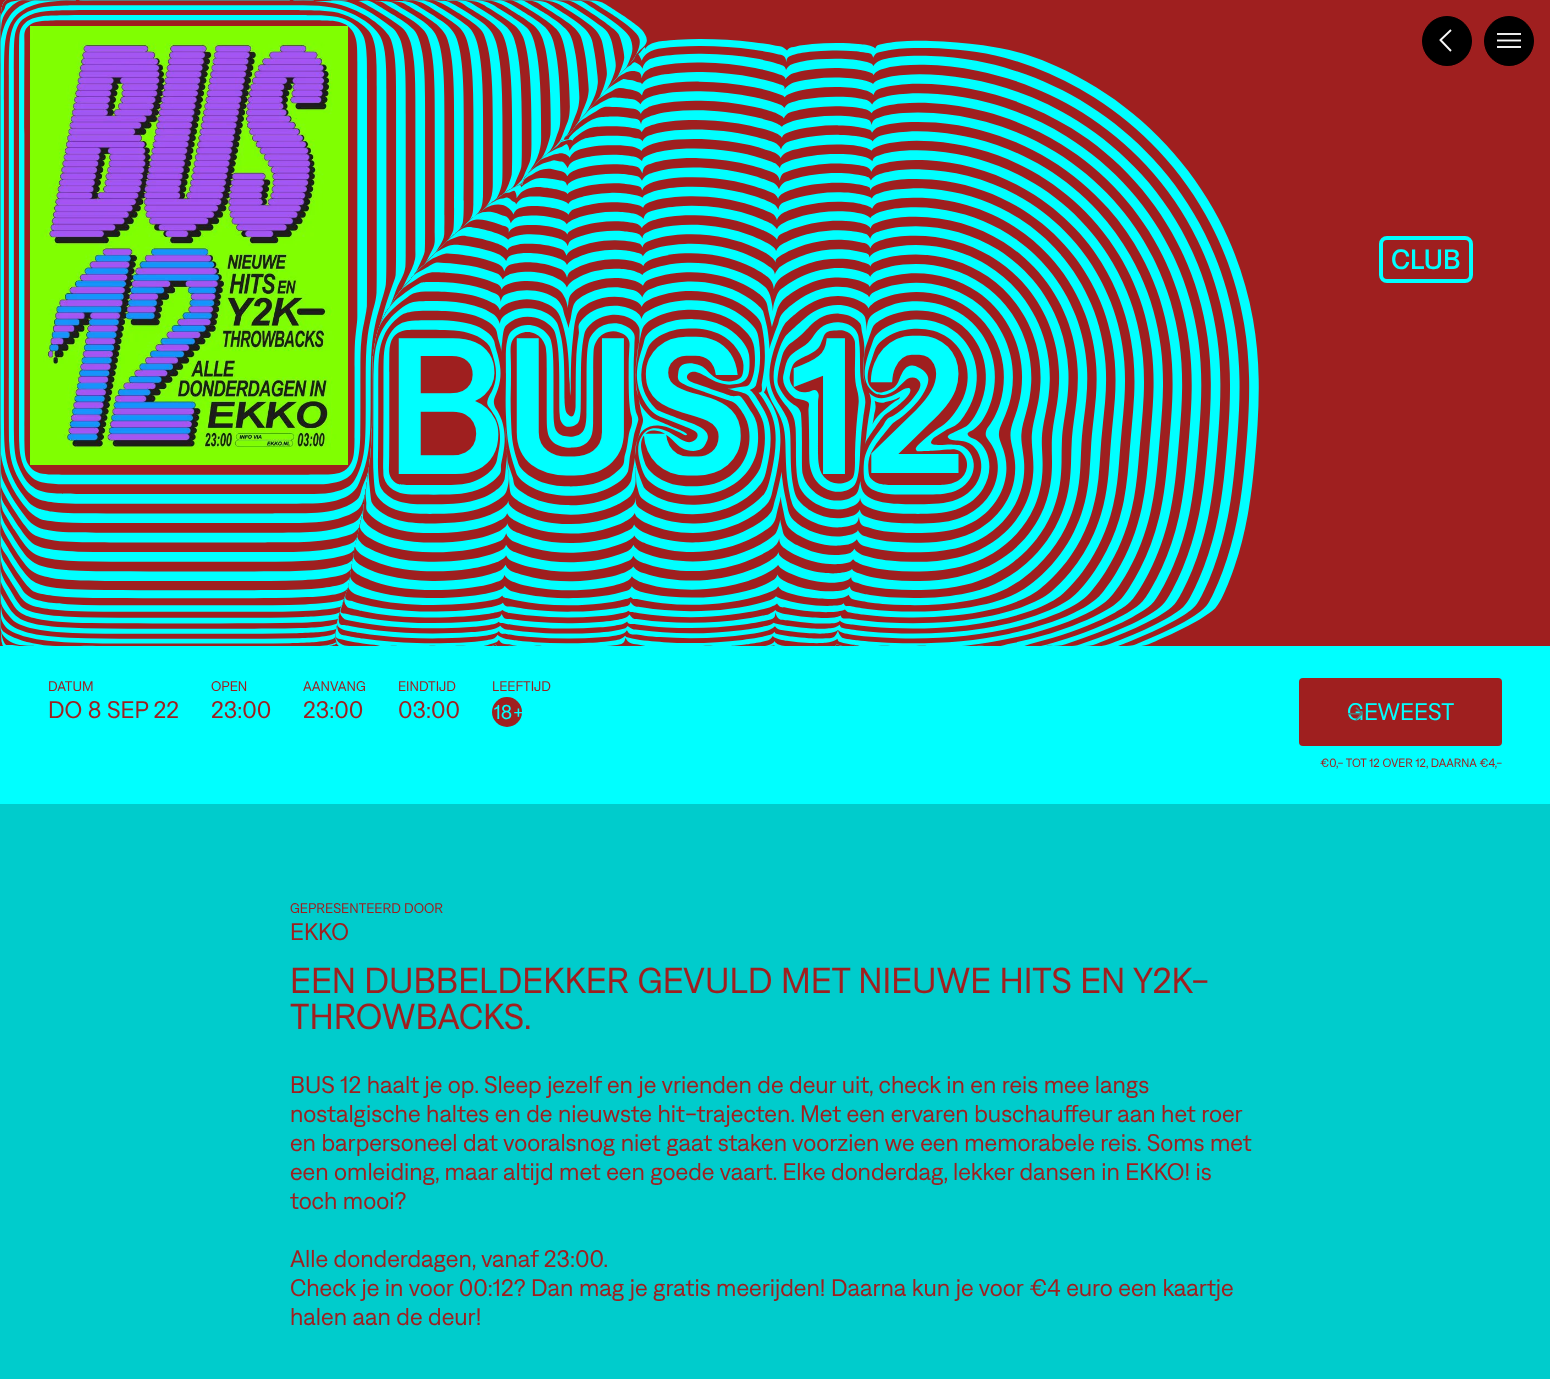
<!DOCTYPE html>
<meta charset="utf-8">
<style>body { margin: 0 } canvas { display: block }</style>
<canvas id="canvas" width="1550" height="1379"></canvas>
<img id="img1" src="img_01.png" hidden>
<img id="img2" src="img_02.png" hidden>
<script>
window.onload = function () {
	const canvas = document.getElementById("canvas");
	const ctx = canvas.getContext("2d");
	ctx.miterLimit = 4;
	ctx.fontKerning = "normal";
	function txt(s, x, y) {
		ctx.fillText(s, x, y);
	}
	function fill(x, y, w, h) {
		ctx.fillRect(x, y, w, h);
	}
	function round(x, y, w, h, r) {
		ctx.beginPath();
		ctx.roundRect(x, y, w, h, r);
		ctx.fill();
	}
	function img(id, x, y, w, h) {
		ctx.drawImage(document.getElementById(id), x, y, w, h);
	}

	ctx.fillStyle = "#00CCCC";
	fill(0, 0, 1550, 1379);
	ctx.fillStyle = "#9F1F1F";
	fill(0, 0, 1550, 646);
	ctx.fillStyle = "#000000";
	ctx.beginPath();
	ctx.arc(1447, 41, 24.5, 0, Math.PI * 2);
	ctx.fill();
	ctx.strokeStyle = "#000000";
	ctx.stroke();
	ctx.beginPath();
	ctx.moveTo(1440, 40.5);
	ctx.lineTo(1451, 30);
	ctx.moveTo(1440, 39.5);
	ctx.lineTo(1451, 51);
	ctx.strokeStyle = "#F8F8F8";
	ctx.lineWidth = 1.9;
	ctx.stroke();
	ctx.beginPath();
	ctx.arc(1509, 41, 24.5, 0, Math.PI * 2);
	ctx.fill();
	ctx.strokeStyle = "#000000";
	ctx.lineWidth = 1;
	ctx.stroke();
	ctx.fillStyle = "#ECECEC";
	fill(1497, 33, 24, 2);
	ctx.beginPath();
	ctx.moveTo(1497, 40.5);
	ctx.lineTo(1521, 40.5);
	ctx.strokeStyle = "#F8F8F8";
	ctx.lineWidth = 1.9;
	ctx.stroke();
	fill(1497, 46, 24, 2);
	img("img1", 0, 0, 1259, 646);
	img("img2", 30, 26, 318, 439);
	ctx.beginPath();
	ctx.roundRect(1381, 238, 90, 43, 6);
	ctx.strokeStyle = "#00FFFF";
	ctx.lineWidth = 4;
	ctx.stroke();
	ctx.fillStyle = "#00FFFF";
	fill(0, 646, 1550, 158);
	ctx.fillStyle = "#9F1F1F";
	ctx.beginPath();
	ctx.arc(507, 712, 15, 0, Math.PI * 2);
	ctx.fill();
	round(1299, 678, 203, 68, 4);
	ctx.font = "500 28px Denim";
	ctx.fillStyle = "#00FFFF";
	txt("CLUB", 1391, 269);
	ctx.font = "500 194px Denim";
	txt("B", 385, 474);
	txt("US 1", 504, 474);
	txt("2", 863, 473);
	ctx.font = "14px Denim";
	ctx.fillStyle = "#9F1F1F";
	txt("DATUM", 48, 691);
	ctx.font = "24px Denim";
	txt("DO 8 SEP 22", 48, 718);
	ctx.font = "14px Denim";
	txt("OPEN", 211, 691);
	ctx.font = "24px Denim";
	txt("23:00", 211, 718);
	ctx.font = "14px Denim";
	txt("AANVANG", 303, 691);
	ctx.font = "24px Denim";
	txt("23:00", 303, 718);
	ctx.font = "14px Denim";
	txt("EINDTIJD", 398, 691);
	ctx.font = "24px Denim";
	txt("03:00", 398, 718);
	ctx.font = "14px Denim";
	txt("LEEFTIJD", 492, 691);
	ctx.font = "20px Denim";
	ctx.fillStyle = "#00FFFF";
	txt("18+", 494, 719);
	ctx.font = "24px Denim";
	txt("GEWEEST", 1347, 720);
	ctx.fillStyle = "#637474";
	txt("->", 1347, 720);
	ctx.font = "12px Denim";
	ctx.fillStyle = "#9F1F1F";
	txt("€0,- TOT 12 OVER 12, DAARNA €4,-", 1320, 767);
	ctx.font = "14px Denim";
	txt("GEPRESENTEERD DOOR", 290, 913);
	ctx.font = "24px Denim";
	txt("EKKO", 290, 940);
	ctx.font = "36px Denim";
	txt("EEN DUBBELDEKKER GEVULD MET NIEUWE HITS EN Y2K-", 290, 993);
	txt("THROWBACKS.", 290, 1029);
	ctx.font = "24px Denim";
	txt("BUS 12 haalt je op. Sleep jezelf en je vrienden de deur uit, check in en reis mee langs", 290, 1093);
	txt("nostalgische haltes en de nieuwste hit-trajecten. Met een ervaren buschauffeur aan het roer", 290, 1122);
	txt("en barpersoneel dat vooralsnog niet gaat staken voorzien we een memorabele reis. Soms met", 290, 1151);
	txt("een omleiding, maar altijd met een goede vaart. Elke donderdag, lekker dansen in EKKO! is", 290, 1180);
	txt("toch mooi?", 290, 1209);
	txt("Alle donderdagen, vanaf 23:00.", 290, 1267);
	txt("Check je in voor 00:12? Dan mag je gratis meerijden! Daarna kun je voor €4 euro een kaartje", 290, 1296);
	txt("halen aan de deur!", 290, 1325);
};
</script>
